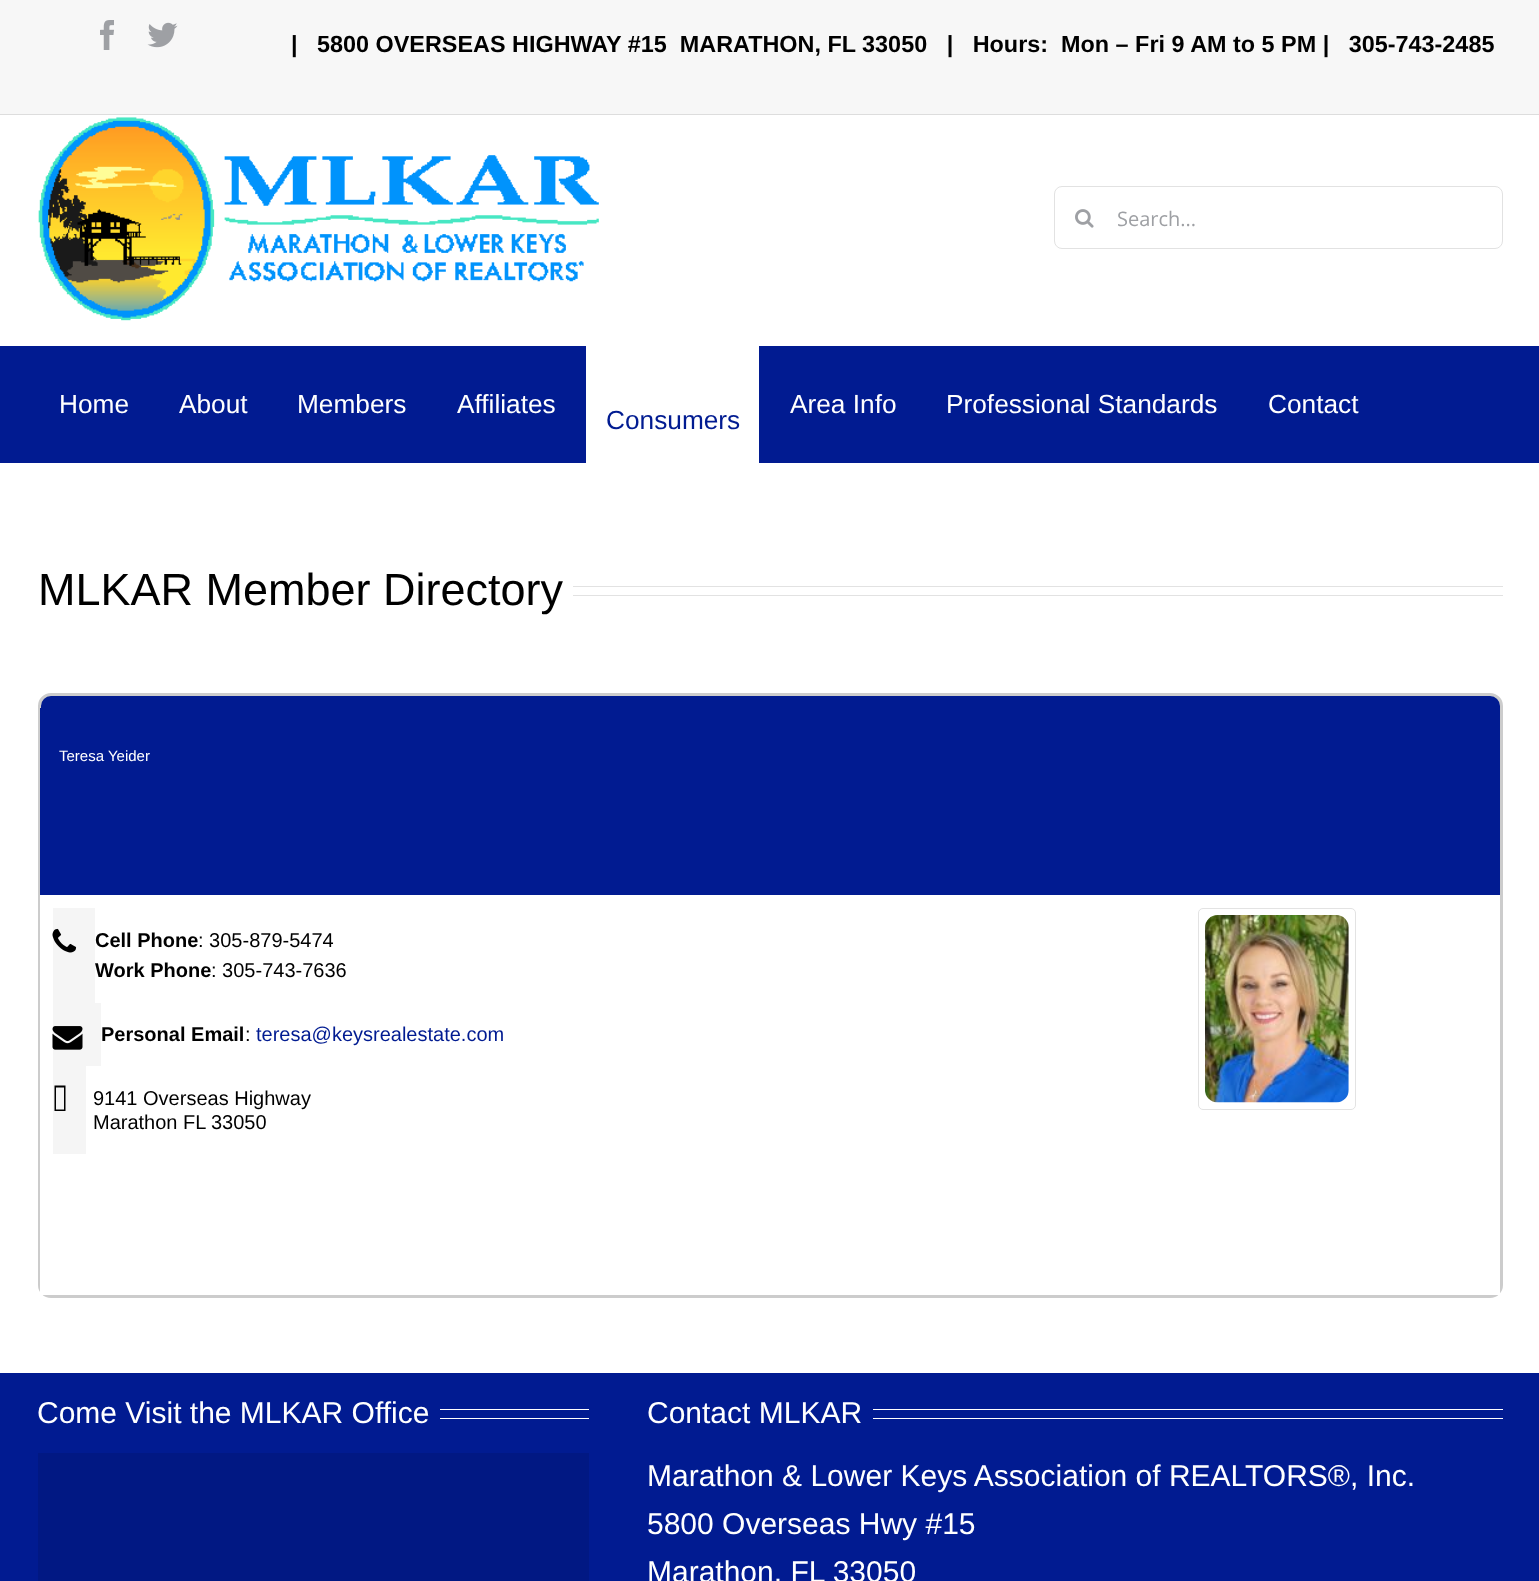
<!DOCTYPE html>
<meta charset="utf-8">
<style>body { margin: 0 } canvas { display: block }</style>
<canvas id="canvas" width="1539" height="1581"></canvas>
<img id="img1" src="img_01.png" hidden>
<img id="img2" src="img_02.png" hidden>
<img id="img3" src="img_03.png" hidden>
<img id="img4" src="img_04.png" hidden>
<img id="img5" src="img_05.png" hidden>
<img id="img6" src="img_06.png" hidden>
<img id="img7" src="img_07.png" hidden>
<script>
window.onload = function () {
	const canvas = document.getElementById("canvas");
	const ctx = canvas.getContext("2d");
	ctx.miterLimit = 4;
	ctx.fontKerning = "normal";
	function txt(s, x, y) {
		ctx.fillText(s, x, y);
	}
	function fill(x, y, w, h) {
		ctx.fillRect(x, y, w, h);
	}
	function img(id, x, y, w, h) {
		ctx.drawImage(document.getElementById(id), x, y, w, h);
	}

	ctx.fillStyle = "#FFFFFF";
	fill(0, 0, 1539, 1581);
	ctx.fillStyle = "#F7F7F7";
	fill(0, 0, 1539, 114);
	ctx.fillStyle = "#DDDDDD";
	fill(0, 114, 1539, 1);
	img("img1", 100, 20, 14, 30);
	img("img2", 147, 22, 31, 26);
	img("img3", 38, 117, 561, 204);
	ctx.beginPath();
	ctx.roundRect(1054.5, 186.5, 448, 62, 7.5);
	ctx.strokeStyle = "#E2E2E2";
	ctx.stroke();
	img("img4", 1075, 209, 19, 19);
	ctx.fillStyle = "#011B91";
	fill(0, 346, 1539, 117);
	ctx.fillStyle = "#FFFFFF";
	fill(586, 346, 173, 117);
	ctx.fillStyle = "#E2E2E2";
	fill(573, 586, 930, 1);
	fill(573, 595, 930, 1);
	ctx.fillStyle = "#011B91";
	ctx.beginPath();
	ctx.roundRect(39.5, 694.5, 1462, 602, 11.5);
	ctx.fill();
	ctx.strokeStyle = "#CCCCCC";
	ctx.lineWidth = 3;
	ctx.stroke();
	fill(40, 708, 1, 187);
	ctx.fillStyle = "#FFFFFF";
	fill(40, 895, 1460, 400);
	ctx.fillStyle = "#F5F5F5";
	fill(53, 908, 42, 95);
	img("img5", 52, 928, 25, 25);
	fill(53, 1003, 48, 63);
	img("img6", 52, 1026, 31, 24);
	fill(53, 1066, 33, 88);
	ctx.fillStyle = "#000000";
	ctx.beginPath();
	ctx.moveTo(56, 1109.5);
	ctx.lineTo(64, 1109.5);
	ctx.lineTo(64, 1087.5);
	ctx.lineTo(56, 1087.5);
	ctx.closePath();
	ctx.moveTo(54.5, 1111);
	ctx.lineTo(54.5, 1085.5);
	ctx.lineTo(65.5, 1085.5);
	ctx.lineTo(65.5, 1111);
	ctx.closePath();
	ctx.fill();
	ctx.beginPath();
	ctx.roundRect(1198.5, 908.5, 157, 201, 4.5);
	ctx.strokeStyle = "#E3E3E3";
	ctx.lineWidth = 1;
	ctx.stroke();
	img("img7", 1205, 915, 144, 188);
	ctx.fillStyle = "#011B91";
	fill(0, 1373, 1539, 208);
	ctx.fillStyle = "#FFFFFF";
	fill(440, 1409, 149, 1);
	fill(440, 1418, 149, 1);
	ctx.fillStyle = "#011883";
	fill(38, 1453, 551, 128);
	ctx.fillStyle = "#FFFFFF";
	fill(873, 1409, 630, 1);
	fill(873, 1418, 630, 1);
	ctx.font = "bold 23.4px Liberation Sans";
	ctx.fillStyle = "#000000";
	txt("|   5800 OVERSEAS HIGHWAY #15  MARATHON, FL 33050   |   Hours:  Mon – Fri 9 AM to 5 PM |   305-743-2485", 291, 52);
	ctx.font = "20px Open Sans";
	ctx.fillStyle = "#9EA0A4";
	txt("Search...", 1117, 226);
	ctx.font = "26.25px Liberation Sans";
	ctx.fillStyle = "#FFFFFF";
	txt("Home", 59, 413);
	txt("About", 179, 413);
	txt("Members", 297, 413);
	txt("Affiliates", 457, 413);
	txt("Area Info", 790, 413);
	txt("Professional Standards", 946, 413);
	txt("Contact", 1268, 413);
	ctx.fillStyle = "#011B91";
	txt("Consumers", 606, 429);
	ctx.font = "45px Liberation Sans";
	ctx.fillStyle = "#000000";
	txt("MLKAR Member Directory", 38, 605);
	ctx.font = "15px Liberation Sans";
	ctx.fillStyle = "#FFFFFF";
	txt("Teresa Yeider", 59, 761);
	ctx.font = "bold 20px Liberation Sans";
	ctx.fillStyle = "#000000";
	txt("Cell Phone", 95, 947);
	ctx.font = "20px Liberation Sans";
	txt(": 305-879-5474", 198, 947);
	ctx.font = "bold 20px Liberation Sans";
	txt("Work Phone", 95, 977);
	ctx.font = "20px Liberation Sans";
	txt(": 305-743-7636", 211, 977);
	ctx.font = "bold 20px Liberation Sans";
	txt("Personal Email", 101, 1041);
	ctx.font = "20px Liberation Sans";
	txt(":", 245, 1041);
	ctx.fillStyle = "#011B91";
	txt("teresa@keysrealestate.com", 256, 1041);
	ctx.fillStyle = "#000000";
	txt("9141 Overseas Highway", 93, 1105);
	txt("Marathon FL", 93, 1129);
	txt("33050", 211, 1129);
	ctx.font = "30px Liberation Sans";
	ctx.fillStyle = "#FFFFFF";
	txt("Come Visit the MLKAR Office", 37, 1423);
	txt("Contact MLKAR", 647, 1423);
	txt("Marathon & Lower Keys Association of REALTORS®, Inc.", 647, 1486);
	txt("5800 Overseas Hwy #15", 647, 1534);
	txt("Marathon, FL 33050", 647, 1582);
};
</script>
